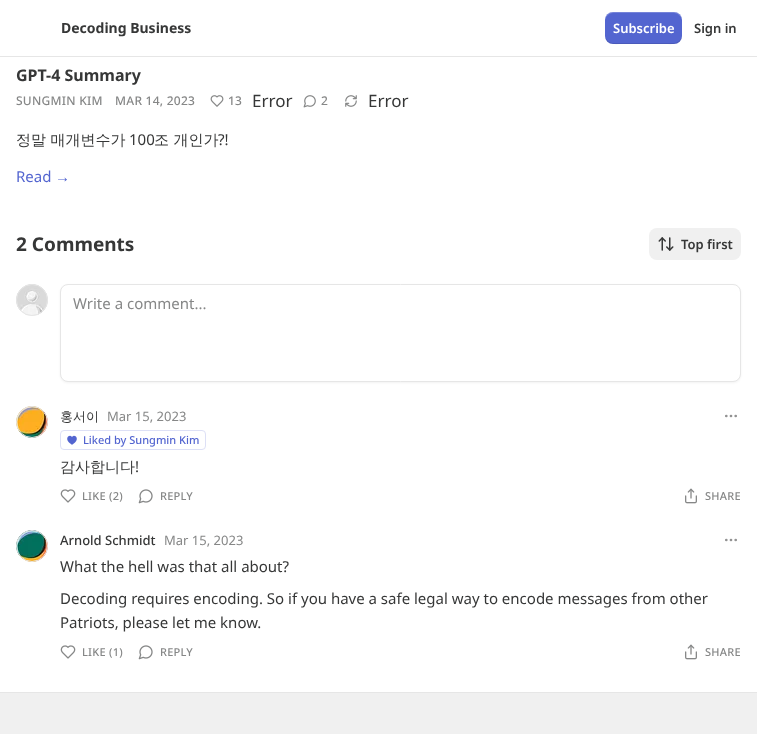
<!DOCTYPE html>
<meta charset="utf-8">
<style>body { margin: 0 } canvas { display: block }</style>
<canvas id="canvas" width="757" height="734"></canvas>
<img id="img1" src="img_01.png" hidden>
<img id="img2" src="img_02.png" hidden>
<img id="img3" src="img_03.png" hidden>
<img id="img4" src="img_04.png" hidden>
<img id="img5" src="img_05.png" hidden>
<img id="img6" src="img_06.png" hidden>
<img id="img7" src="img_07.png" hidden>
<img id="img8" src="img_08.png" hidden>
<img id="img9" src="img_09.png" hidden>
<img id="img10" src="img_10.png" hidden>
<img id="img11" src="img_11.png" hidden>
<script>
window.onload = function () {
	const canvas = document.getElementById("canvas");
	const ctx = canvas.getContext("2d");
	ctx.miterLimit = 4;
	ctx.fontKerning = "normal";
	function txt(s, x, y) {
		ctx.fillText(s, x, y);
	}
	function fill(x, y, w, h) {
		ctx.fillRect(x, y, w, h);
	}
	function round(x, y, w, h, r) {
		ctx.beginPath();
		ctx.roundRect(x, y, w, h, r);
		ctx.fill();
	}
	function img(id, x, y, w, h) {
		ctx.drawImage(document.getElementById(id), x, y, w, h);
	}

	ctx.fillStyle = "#FFFFFF";
	fill(0, 0, 757, 734);
	ctx.fillStyle = "#E6E6E6";
	fill(0, 56, 757, 1);
	ctx.fillStyle = "#5365D0";
	round(605, 12, 77, 32, 8);
	ctx.fillStyle = "rgba(0, 0, 0, 0.1)";
	ctx.beginPath();
	ctx.moveTo(605, 35);
	ctx.bezierCurveTo(605, 46, 615, 44, 623, 44);
	ctx.lineTo(664, 44);
	ctx.bezierCurveTo(672, 44, 682, 46, 682, 35);
	ctx.bezierCurveTo(682, 39, 678, 43, 674, 43);
	ctx.lineTo(613, 43);
	ctx.bezierCurveTo(609, 43, 605, 39, 605, 35);
	ctx.closePath();
	ctx.fill();
	ctx.fillStyle = "rgba(255, 255, 255, 0.2)";
	ctx.beginPath();
	ctx.moveTo(613, 13);
	ctx.lineTo(674, 13);
	ctx.bezierCurveTo(678, 13, 682, 17, 682, 21);
	ctx.bezierCurveTo(682, 10, 672, 12, 664, 12);
	ctx.lineTo(623, 12);
	ctx.bezierCurveTo(615, 12, 605, 10, 605, 21);
	ctx.bezierCurveTo(605, 17, 609, 13, 613, 13);
	ctx.closePath();
	ctx.fill();
	img("img1", 210, 95, 14, 12);
	img("img2", 303, 95, 13, 13);
	img("img3", 345, 95, 12, 12);
	ctx.fillStyle = "#F0F0F0";
	round(649, 228, 92, 32, 8);
	img("img4", 658, 237, 16, 14);
	ctx.beginPath();
	ctx.arc(32, 300, 15.5, 0, Math.PI * 2);
	ctx.strokeStyle = "#E6E6E6";
	ctx.stroke();
	img("img5", 16, 284, 32, 32);
	ctx.beginPath();
	ctx.arc(32, 300, 15.5, 0, Math.PI * 2);
	ctx.stroke();
	ctx.fillStyle = "rgba(0, 0, 0, 0.05)";
	ctx.filter = "blur(1px)";
	ctx.beginPath();
	ctx.roundRect(60, 285, 681, 98, 8);
	ctx.fill();
	ctx.filter = "none";
	ctx.fillStyle = "#FFFFFF";
	ctx.beginPath();
	ctx.roundRect(60.5, 284.5, 680, 97, 7.5);
	ctx.fill();
	ctx.stroke();
	ctx.beginPath();
	ctx.arc(32, 422, 15.5, 0, Math.PI * 2);
	ctx.stroke();
	img("img6", 16, 406, 32, 32);
	ctx.beginPath();
	ctx.arc(32, 422, 15.5, 0, Math.PI * 2);
	ctx.stroke();
	ctx.beginPath();
	ctx.roundRect(60.5, 430.5, 145, 19, 3.5);
	ctx.strokeStyle = "#DDE0F6";
	ctx.stroke();
	img("img7", 67, 435, 10, 10);
	ctx.beginPath();
	ctx.arc(731, 416, 0.7, 0, Math.PI * 2);
	ctx.strokeStyle = "#929292";
	ctx.lineWidth = 1.3;
	ctx.stroke();
	ctx.beginPath();
	ctx.arc(735.7, 416, 0.7, 0, Math.PI * 2);
	ctx.stroke();
	ctx.beginPath();
	ctx.arc(726.3, 416, 0.7, 0, Math.PI * 2);
	ctx.stroke();
	img("img8", 60, 489, 16, 14);
	img("img9", 138, 489, 15, 15);
	img("img10", 685, 488, 12, 16);
	ctx.beginPath();
	ctx.arc(32, 546, 15.5, 0, Math.PI * 2);
	ctx.strokeStyle = "#E6E6E6";
	ctx.lineWidth = 1;
	ctx.stroke();
	img("img11", 16, 530, 32, 32);
	ctx.beginPath();
	ctx.arc(32, 546, 15.5, 0, Math.PI * 2);
	ctx.stroke();
	ctx.beginPath();
	ctx.arc(731, 540, 0.7, 0, Math.PI * 2);
	ctx.strokeStyle = "#929292";
	ctx.lineWidth = 1.3;
	ctx.stroke();
	ctx.beginPath();
	ctx.arc(735.7, 540, 0.7, 0, Math.PI * 2);
	ctx.stroke();
	ctx.beginPath();
	ctx.arc(726.3, 540, 0.7, 0, Math.PI * 2);
	ctx.stroke();
	img("img8", 60, 645, 16, 14);
	img("img9", 138, 645, 15, 15);
	img("img10", 685, 644, 12, 16);
	ctx.fillStyle = "#F0F0F0";
	fill(0, 693, 757, 41);
	ctx.fillStyle = "#E6E6E6";
	fill(0, 692, 757, 1);
	ctx.font = "bold 14px Noto Sans";
	ctx.fillStyle = "#363737";
	txt("Decoding Business", 61, 33);
	ctx.font = "600 13px Noto Sans";
	ctx.fillStyle = "#FFFFFF";
	txt("Subscribe", 613, 33);
	ctx.fillStyle = "#363737";
	txt("Sign in", 694, 33);
	ctx.font = "bold 16px Noto Sans";
	txt("GPT-4 Summary", 16, 81);
	ctx.letterSpacing = "0.25px";
	ctx.font = "500 12px Noto Sans";
	ctx.fillStyle = "#868787";
	txt("SUNGMIN KIM", 16, 105);
	txt("MAR 14, 2023", 115, 105);
	txt("13", 228, 105);
	ctx.letterSpacing = "0px";
	ctx.font = "17px Noto Sans";
	ctx.fillStyle = "#363737";
	txt("Error", 252, 107);
	ctx.letterSpacing = "0.25px";
	ctx.font = "500 12px Noto Sans";
	ctx.fillStyle = "#868787";
	txt("2", 321, 105);
	ctx.letterSpacing = "0px";
	ctx.font = "17px Noto Sans";
	ctx.fillStyle = "#363737";
	txt("Error", 368, 107);
	ctx.font = "500 15px WenQuanYi Zen Hei";
	txt("정말 매개변수가", 16, 145);
	ctx.font = "15px Noto Sans";
	txt("100", 129, 145);
	ctx.font = "500 15px WenQuanYi Zen Hei";
	txt("조 개인가", 154, 145);
	ctx.font = "15px Noto Sans";
	txt("?!", 218, 145);
	ctx.fillStyle = "#5365D0";
	txt("Read", 16, 182);
	ctx.font = "15px Liberation Sans";
	txt("→", 55, 182);
	ctx.font = "bold 19px Noto Sans";
	ctx.fillStyle = "#363737";
	txt("2 Comments", 16, 251);
	ctx.font = "600 13px Noto Sans";
	txt("Top first", 681, 249);
	ctx.font = "15px Noto Sans";
	ctx.fillStyle = "#868787";
	txt("Write a comment...", 73, 309);
	ctx.font = "500 13px WenQuanYi Zen Hei";
	ctx.fillStyle = "#363737";
	txt("홍서이", 60, 421);
	ctx.font = "13px Noto Sans";
	ctx.fillStyle = "#868787";
	txt("Mar 15, 2023", 107, 421);
	ctx.font = "500 11px Noto Sans";
	ctx.fillStyle = "#5365D0";
	txt("Liked by Sungmin Kim", 83, 444);
	ctx.font = "500 15px WenQuanYi Zen Hei";
	ctx.fillStyle = "#363737";
	txt("감사합니다", 60, 472);
	ctx.font = "15px Noto Sans";
	txt("!", 135, 472);
	ctx.letterSpacing = "0.25px";
	ctx.font = "500 11px Noto Sans";
	ctx.fillStyle = "#868787";
	txt("LIKE (2)", 82, 500);
	txt("REPLY", 160, 500);
	txt("SHARE", 705, 500);
	ctx.letterSpacing = "0px";
	ctx.font = "500 13px Noto Sans";
	ctx.fillStyle = "#363737";
	txt("Arnold Schmidt", 60, 545);
	ctx.font = "13px Noto Sans";
	ctx.fillStyle = "#868787";
	txt("Mar 15, 2023", 164, 545);
	ctx.font = "15px Noto Sans";
	ctx.fillStyle = "#363737";
	txt("What the hell was that all about?", 60, 572);
	txt("Decoding requires encoding. So if you have a safe legal way to encode messages from other", 60, 604);
	txt("Patriots, please let me know.", 60, 628);
	ctx.letterSpacing = "0.25px";
	ctx.font = "500 11px Noto Sans";
	ctx.fillStyle = "#868787";
	txt("LIKE (1)", 82, 656);
	txt("REPLY", 160, 656);
	txt("SHARE", 705, 656);
};
</script>
